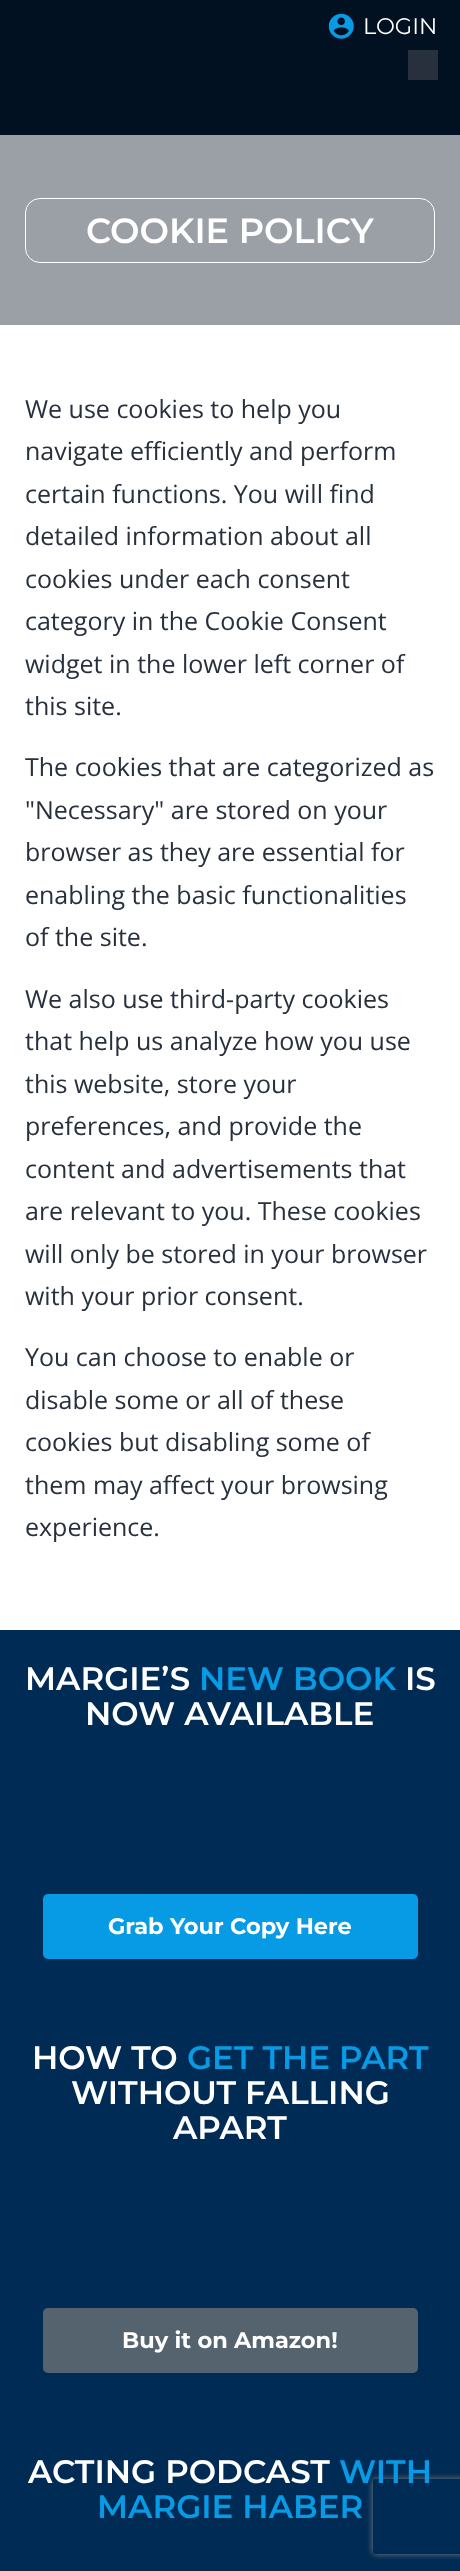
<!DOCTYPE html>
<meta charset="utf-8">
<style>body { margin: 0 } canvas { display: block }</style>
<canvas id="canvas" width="460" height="2571"></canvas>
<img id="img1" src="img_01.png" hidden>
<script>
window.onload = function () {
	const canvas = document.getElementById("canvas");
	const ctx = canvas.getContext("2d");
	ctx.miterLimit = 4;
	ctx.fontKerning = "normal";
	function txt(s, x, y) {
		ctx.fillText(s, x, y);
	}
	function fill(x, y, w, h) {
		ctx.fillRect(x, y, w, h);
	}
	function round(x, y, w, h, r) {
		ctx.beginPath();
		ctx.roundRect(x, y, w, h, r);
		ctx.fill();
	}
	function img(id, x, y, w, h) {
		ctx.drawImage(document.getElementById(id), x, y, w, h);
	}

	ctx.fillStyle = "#FFFFFF";
	fill(0, 0, 460, 2571);
	ctx.fillStyle = "#011121";
	fill(0, 0, 460, 135);
	img("img1", 329, 14, 25, 25);
	ctx.fillStyle = "#28303D";
	fill(408, 50, 30, 30);
	ctx.fillStyle = "#9AA0A6";
	fill(0, 135, 460, 190);
	ctx.beginPath();
	ctx.roundRect(25.5, 198.5, 409, 64, 14.5);
	ctx.strokeStyle = "#FFFFFF";
	ctx.stroke();
	ctx.fillStyle = "#002B54";
	fill(0, 1630, 460, 941);
	ctx.fillStyle = "#079BE5";
	round(43, 1894, 375, 65, 5);
	ctx.fillStyle = "#55636F";
	round(43, 2308, 375, 65, 5);
	ctx.save();
	ctx.beginPath();
	ctx.moveTo(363, 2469);
	ctx.lineTo(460, 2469);
	ctx.lineTo(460, 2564);
	ctx.lineTo(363, 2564);
	ctx.closePath();
	ctx.moveTo(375.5, 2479);
	ctx.lineTo(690.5, 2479);
	ctx.bezierCurveTo(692, 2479, 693, 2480, 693, 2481.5);
	ctx.lineTo(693, 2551.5);
	ctx.bezierCurveTo(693, 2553, 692, 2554, 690.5, 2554);
	ctx.lineTo(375.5, 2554);
	ctx.bezierCurveTo(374, 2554, 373, 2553, 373, 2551.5);
	ctx.lineTo(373, 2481.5);
	ctx.bezierCurveTo(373, 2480, 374, 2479, 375.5, 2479);
	ctx.closePath();
	ctx.clip("evenodd");
	ctx.fillStyle = "#808080";
	ctx.filter = "blur(3px)";
	ctx.beginPath();
	ctx.roundRect(373, 2479, 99, 75, 2.5);
	ctx.fill();
	ctx.filter = "none";
	ctx.restore();
	ctx.font = "22.5px Montserrat";
	ctx.fillStyle = "#FFFFFF";
	txt("LOGIN", 363, 34);
	ctx.font = "600 35px Montserrat";
	txt("COOKIE POLICY", 86, 243);
	ctx.font = "25px Open Sans";
	ctx.fillStyle = "#28303D";
	txt("We use cookies to help you", 25, 418);
	txt("navigate efficiently and perform", 25, 460);
	txt("certain functions. You will find", 25, 503);
	txt("detailed information about all", 25, 545);
	txt("cookies under each consent", 25, 588);
	txt("category in the Cookie Consent", 25, 630);
	txt("widget in the lower left corner of", 25, 673);
	txt("this site.", 25, 715);
	txt("The cookies that are categorized as", 25, 776);
	txt("\"Necessary\" are stored on your", 25, 819);
	txt("browser as they are essential for", 25, 861);
	txt("enabling the basic functionalities", 25, 904);
	txt("of the site.", 25, 946);
	txt("We also use third-party cookies", 25, 1008);
	txt("that help us analyze how you use", 25, 1050);
	txt("this website, store your", 25, 1093);
	txt("preferences, and provide the", 25, 1135);
	txt("content and advertisements that", 25, 1178);
	txt("are relevant to you. These cookies", 25, 1220);
	txt("will only be stored in your browser", 25, 1263);
	txt("with your prior consent.", 25, 1305);
	txt("You can choose to enable or", 25, 1366);
	txt("disable some or all of these", 25, 1409);
	txt("cookies but disabling some of", 25, 1451);
	txt("them may affect your browsing", 25, 1494);
	txt("experience.", 25, 1536);
	ctx.font = "600 32.5px Montserrat";
	ctx.fillStyle = "#FFFFFF";
	txt("MARGIE’S", 25, 1690);
	ctx.fillStyle = "#079BE5";
	txt("NEW BOOK", 199, 1690);
	ctx.fillStyle = "#FFFFFF";
	txt("IS", 405, 1690);
	txt("NOW AVAILABLE", 85, 1725);
	ctx.font = "bold 22.5px Montserrat";
	txt("Grab Your Copy Here", 108, 1934);
	ctx.font = "600 32.5px Montserrat";
	txt("HOW TO", 32, 2069);
	ctx.fillStyle = "#079BE5";
	txt("GET THE PART", 187, 2069);
	ctx.fillStyle = "#FFFFFF";
	txt("WITHOUT FALLING", 71, 2104);
	txt("APART", 173, 2139);
	ctx.font = "bold 22.5px Montserrat";
	txt("Buy it on Amazon!", 122, 2348);
	ctx.font = "600 32.5px Montserrat";
	txt("ACTING PODCAST", 28, 2483);
	ctx.fillStyle = "#079BE5";
	txt("WITH", 339, 2483);
	txt("MARGIE HABER", 97, 2518);
};
</script>
